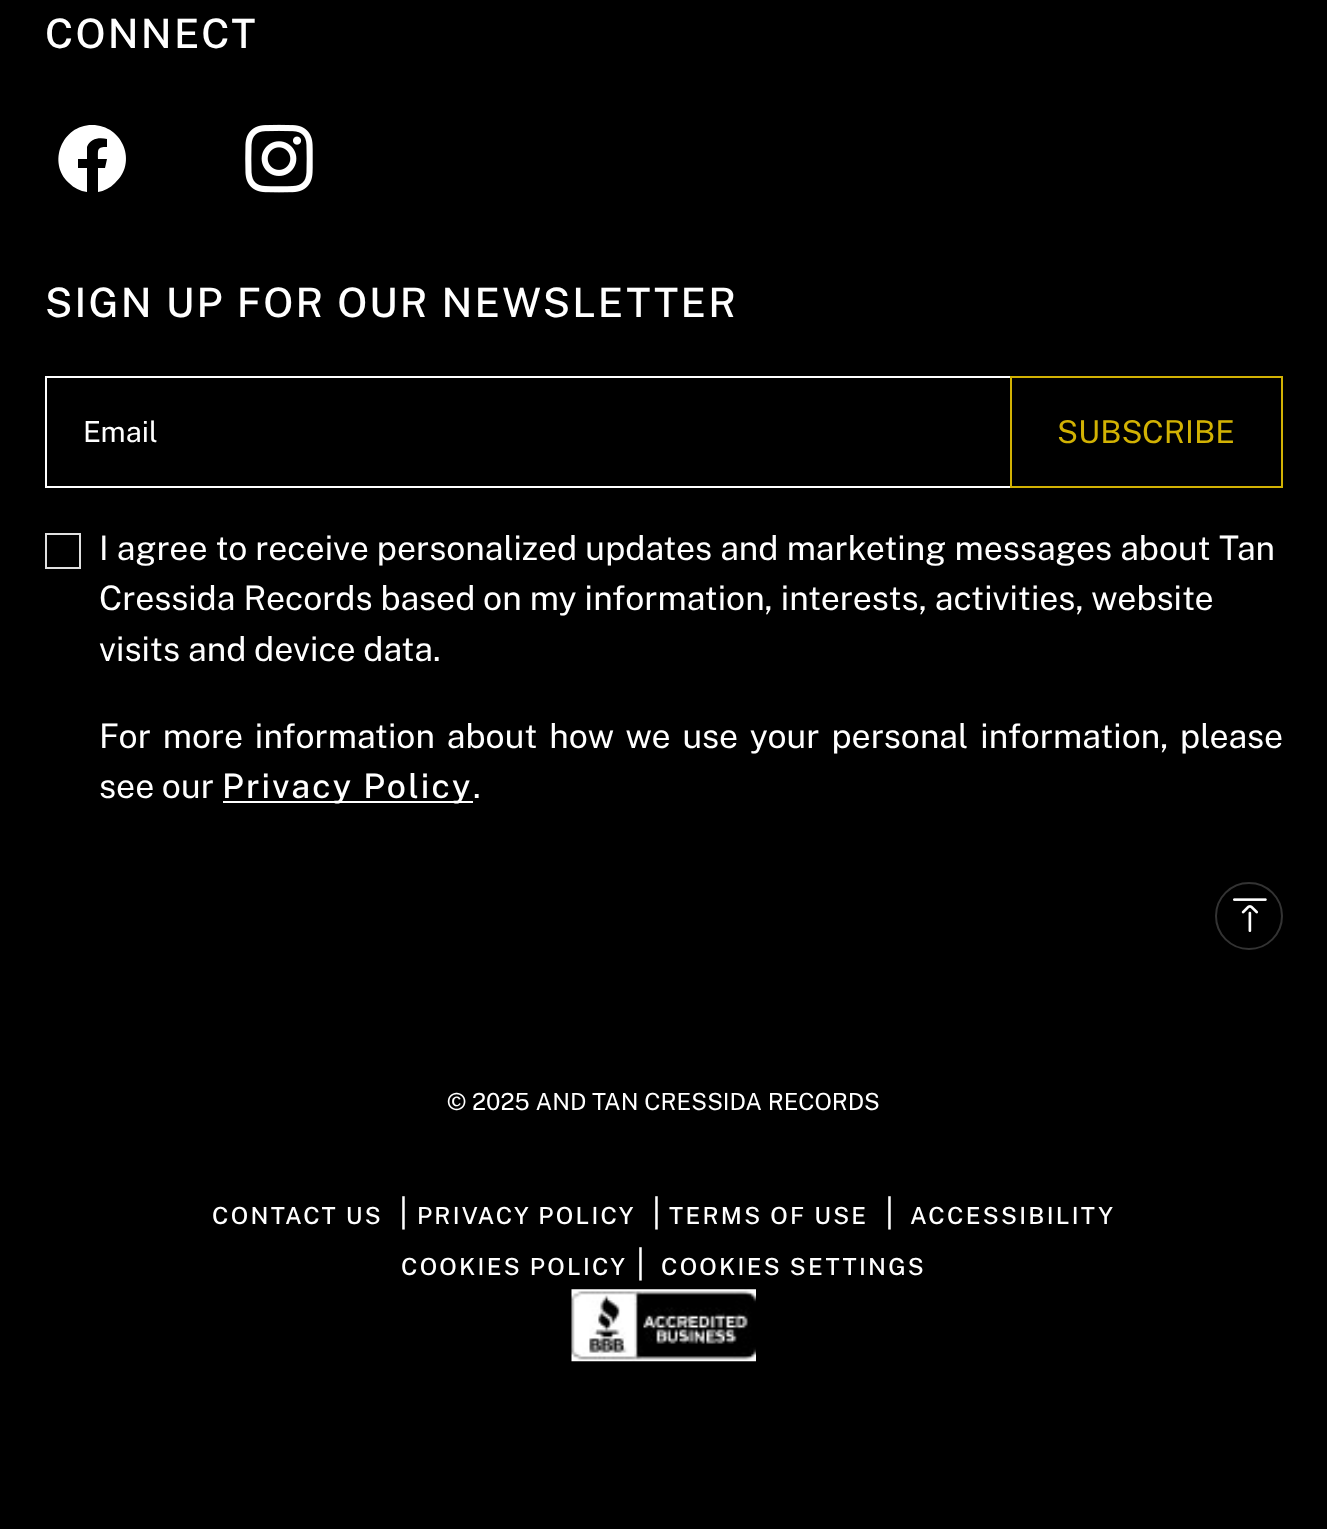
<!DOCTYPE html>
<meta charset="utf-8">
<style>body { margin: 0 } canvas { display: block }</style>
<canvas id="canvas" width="1327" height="1529"></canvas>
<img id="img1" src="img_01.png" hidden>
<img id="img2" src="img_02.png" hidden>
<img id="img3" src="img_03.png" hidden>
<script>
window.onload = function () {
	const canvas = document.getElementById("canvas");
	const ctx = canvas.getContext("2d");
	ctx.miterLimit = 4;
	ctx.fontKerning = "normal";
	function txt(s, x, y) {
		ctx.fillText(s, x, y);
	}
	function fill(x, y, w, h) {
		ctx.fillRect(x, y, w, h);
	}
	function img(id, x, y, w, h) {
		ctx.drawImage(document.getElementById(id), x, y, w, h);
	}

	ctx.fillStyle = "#000000";
	fill(0, 0, 1327, 1529);
	ctx.fillStyle = "#FFFFFF";
	ctx.beginPath();
	ctx.moveTo(92, 125);
	ctx.bezierCurveTo(123, 125, 138, 163, 115, 183);
	ctx.bezierCurveTo(110, 188, 104, 191, 98, 192);
	ctx.lineTo(98, 168);
	ctx.lineTo(105, 168);
	ctx.lineTo(107, 159);
	ctx.lineTo(98, 159);
	ctx.bezierCurveTo(98, 149, 97, 147, 107, 147);
	ctx.lineTo(107, 139);
	ctx.bezierCurveTo(100, 137, 90, 138, 87, 147);
	ctx.lineTo(87, 159);
	ctx.lineTo(78, 159);
	ctx.lineTo(78, 168);
	ctx.lineTo(87, 168);
	ctx.lineTo(87, 192);
	ctx.bezierCurveTo(80, 191, 74, 188, 69, 183);
	ctx.bezierCurveTo(47, 163, 62, 125, 92, 125);
	ctx.closePath();
	ctx.fill();
	img("img1", 245, 124, 68, 69);
	ctx.strokeStyle = "#FFFFFF";
	ctx.lineWidth = 2;
	ctx.strokeRect(46, 377, 966, 110);
	ctx.fillStyle = "#000000";
	fill(1012, 378, 1, 108);
	ctx.strokeStyle = "#D2B203";
	ctx.strokeRect(1011, 377, 271, 110);
	ctx.strokeStyle = "#E0E0E0";
	ctx.strokeRect(46, 534, 34, 34);
	ctx.fillStyle = "#FFFFFF";
	fill(223, 801, 250, 2);
	ctx.beginPath();
	ctx.arc(1249, 916, 33, 0, Math.PI * 2);
	ctx.strokeStyle = "#333333";
	ctx.stroke();
	img("img2", 1233, 898, 34, 34);
	img("img3", 571, 1289, 185, 73);
	ctx.letterSpacing = "2.25px";
	ctx.font = "500 40.5px Public Sans";
	txt("CONNECT", 45, 48);
	txt("SIGN UP FOR OUR NEWSLETTER", 45, 317);
	ctx.letterSpacing = "0px";
	ctx.font = "29px Public Sans";
	txt("Email", 83, 442);
	ctx.font = "31.5px Public Sans";
	ctx.fillStyle = "#D2B203";
	txt("SUBSCRIBE", 1057, 443);
	ctx.font = "33.75px Public Sans";
	ctx.fillStyle = "#FFFFFF";
	txt("I agree to receive personalized updates and marketing messages about Tan", 99, 560);
	txt("Cressida Records based on my information, interests, activities, website", 99, 610);
	txt("visits and device data.", 99, 661);
	ctx.wordSpacing = "3.75px";
	txt("For more information about how we use your personal information, please", 99, 748);
	ctx.wordSpacing = "0px";
	txt("see our", 99, 798);
	ctx.letterSpacing = "2.25px";
	ctx.font = "500 33.75px Public Sans";
	txt("Privacy Policy", 222, 798);
	ctx.letterSpacing = "0px";
	ctx.font = "33.75px Public Sans";
	txt(".", 473, 798);
	ctx.font = "23.6px Public Sans";
	txt("© 2025 AND TAN CRESSIDA RECORDS", 447, 1110);
	ctx.letterSpacing = "2.25px";
	ctx.font = "500 23.6px Public Sans";
	txt("CONTACT US", 212, 1224);
	ctx.letterSpacing = "0px";
	ctx.font = "33.75px Public Sans";
	txt("|", 399, 1224);
	ctx.letterSpacing = "2.25px";
	ctx.font = "500 23.6px Public Sans";
	txt("PRIVACY POLICY", 417, 1224);
	ctx.letterSpacing = "0px";
	ctx.font = "33.75px Public Sans";
	txt("|", 652, 1224);
	ctx.letterSpacing = "2.25px";
	ctx.font = "500 23.6px Public Sans";
	txt("TERMS OF USE", 669, 1224);
	ctx.letterSpacing = "0px";
	ctx.font = "33.75px Public Sans";
	txt("|", 885, 1224);
	ctx.letterSpacing = "2.25px";
	ctx.font = "500 23.6px Public Sans";
	txt("ACCESSIBILITY", 910, 1224);
	txt("COOKIES POLICY", 401, 1275);
	ctx.letterSpacing = "0px";
	ctx.font = "33.75px Public Sans";
	txt("|", 636, 1275);
	ctx.letterSpacing = "2.25px";
	ctx.font = "500 23.6px Public Sans";
	txt("COOKIES SETTINGS", 661, 1275);
};
</script>
